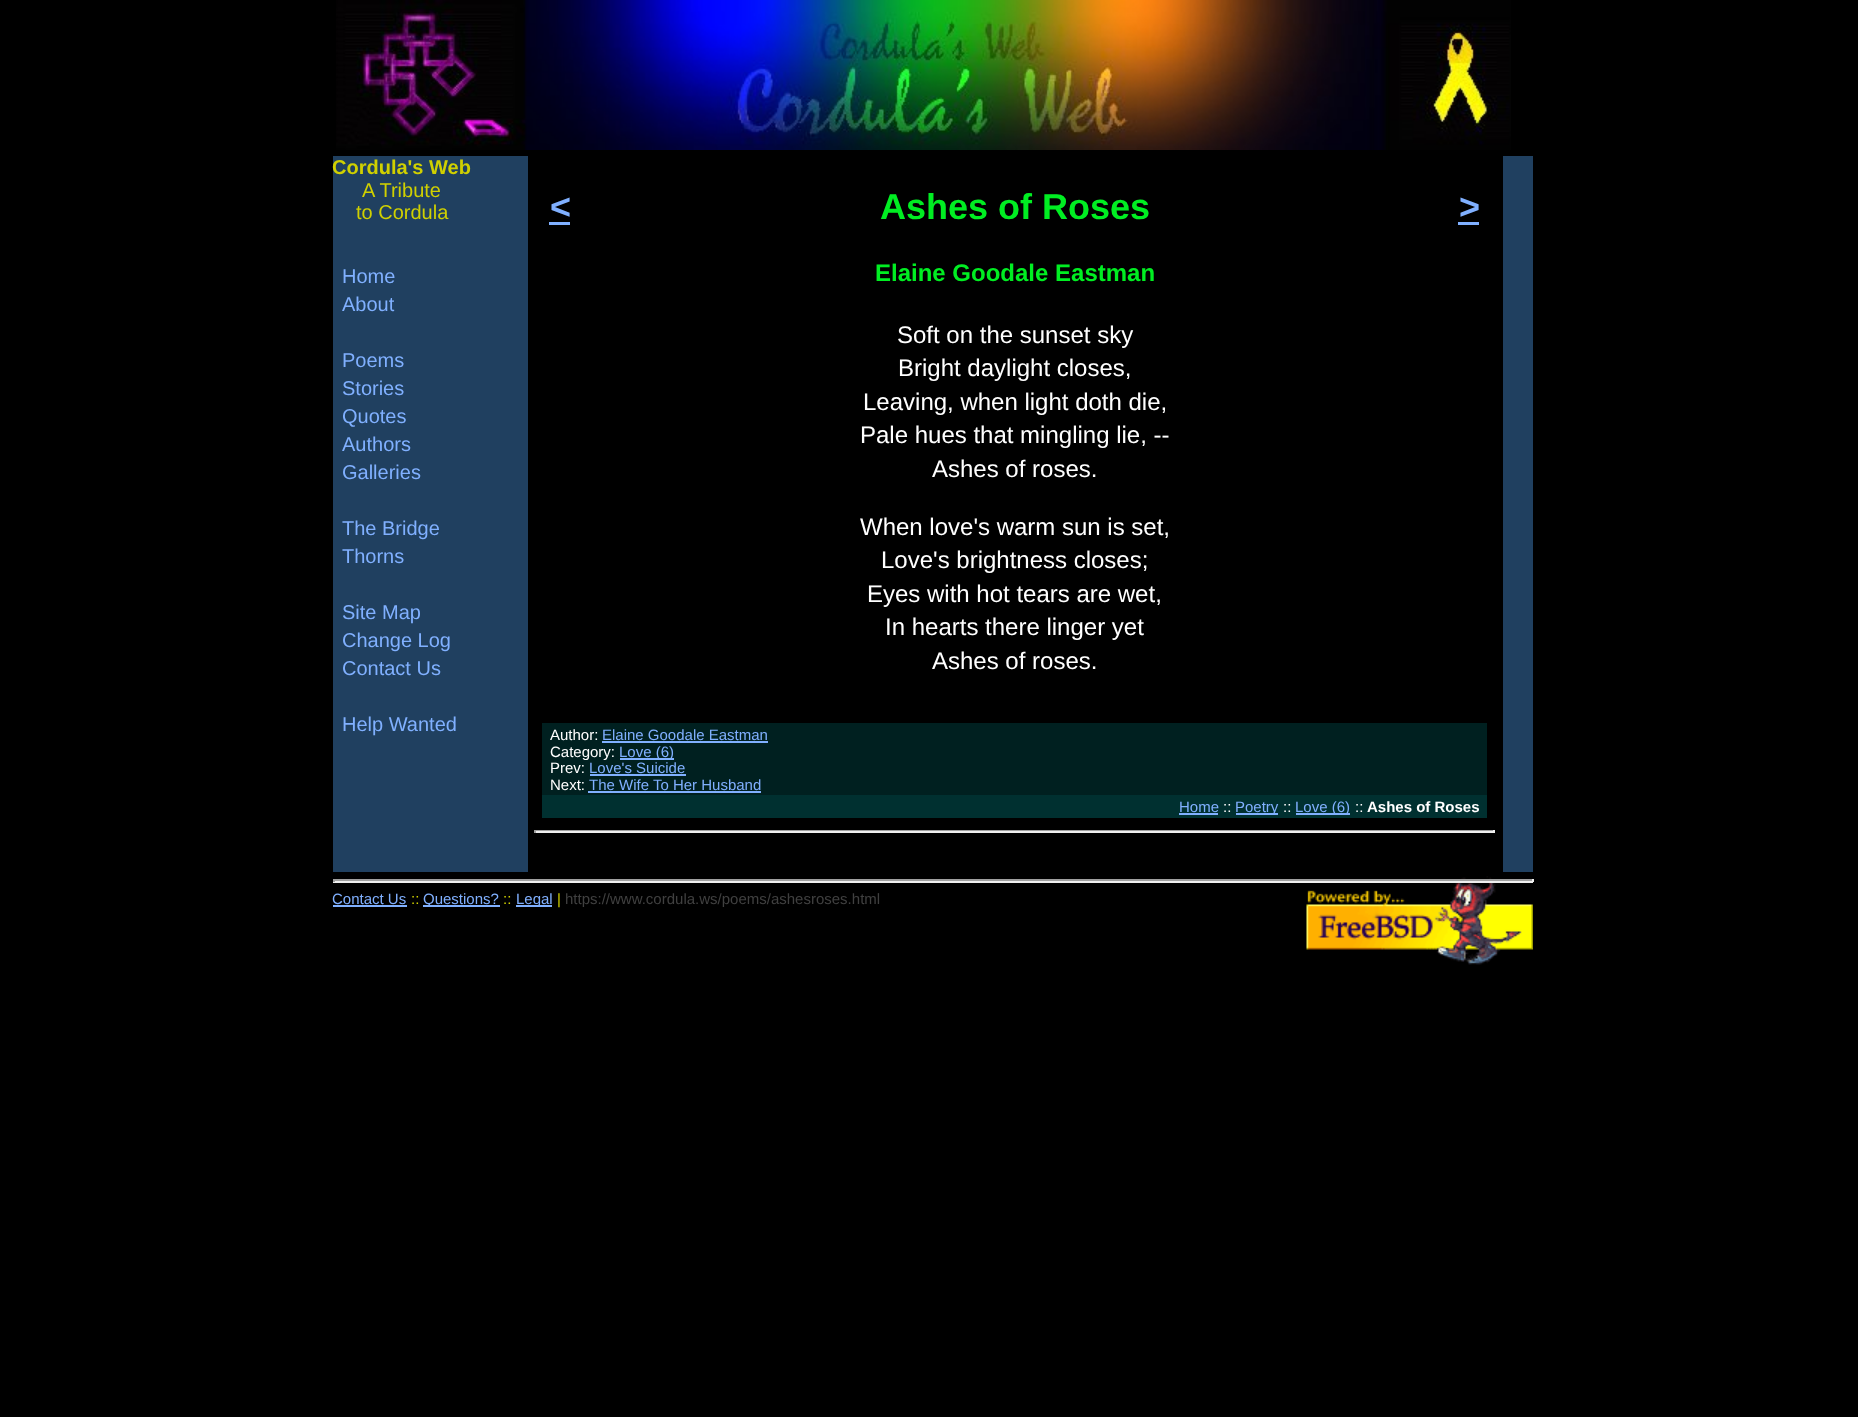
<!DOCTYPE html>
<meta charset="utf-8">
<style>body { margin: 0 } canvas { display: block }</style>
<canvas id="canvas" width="1858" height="1417"></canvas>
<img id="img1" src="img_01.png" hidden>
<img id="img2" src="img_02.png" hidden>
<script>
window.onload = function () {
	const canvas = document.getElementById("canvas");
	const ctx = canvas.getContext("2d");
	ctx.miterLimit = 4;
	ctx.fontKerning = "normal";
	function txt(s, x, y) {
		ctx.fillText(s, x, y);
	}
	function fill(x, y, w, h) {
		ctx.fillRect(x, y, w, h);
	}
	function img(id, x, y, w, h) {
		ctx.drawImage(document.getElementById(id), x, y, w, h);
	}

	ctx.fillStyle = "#000000";
	fill(0, 0, 1858, 1417);
	img("img1", 336, 0, 1175, 150);
	ctx.fillStyle = "#204060";
	fill(1503, 156, 30, 716);
	fill(333, 156, 195, 716);
	ctx.fillStyle = "#80B0FF";
	fill(549, 222, 21, 3);
	fill(1458, 222, 21, 3);
	ctx.fillStyle = "#002020";
	fill(542, 723, 945, 72);
	ctx.fillStyle = "#80B0FF";
	fill(602, 741, 166, 2);
	fill(620, 758, 54, 2);
	fill(590, 774, 96, 2);
	fill(588, 791, 173, 2);
	ctx.fillStyle = "#003030";
	fill(542, 795, 945, 23);
	ctx.fillStyle = "#80B0FF";
	fill(1179, 813, 39, 2);
	fill(1236, 813, 42, 2);
	fill(1296, 813, 54, 2);
	ctx.fillStyle = "#9F9F9F";
	fill(534, 830, 960, 1);
	ctx.fillStyle = "#EEEEEE";
	fill(1493, 830, 2, 3);
	fill(534, 831, 960, 2);
	ctx.fillStyle = "#9F9F9F";
	fill(534, 830, 2, 3);
	img("img2", 1306, 876, 227, 89);
	fill(333, 879, 1200, 2);
	ctx.fillStyle = "#EEEEEE";
	fill(1532, 879, 2, 3);
	fill(333, 881, 1200, 2);
	ctx.fillStyle = "#9F9F9F";
	fill(333, 879, 2, 3);
	ctx.fillStyle = "#80B0FF";
	fill(333, 905, 74, 2);
	fill(423, 905, 77, 2);
	fill(516, 905, 36, 2);
	ctx.font = "bold 20px Liberation Sans";
	ctx.fillStyle = "#D0D000";
	txt("Cordula's Web", 332, 174);
	ctx.font = "20px Liberation Sans";
	txt("A Tribute", 362, 197);
	txt("to Cordula", 356, 219);
	ctx.fillStyle = "#80B0FF";
	txt("Home", 342, 283);
	txt("About", 342, 311);
	txt("Poems", 342, 367);
	txt("Stories", 342, 395);
	txt("Quotes", 342, 423);
	txt("Authors", 342, 451);
	txt("Galleries", 342, 479);
	txt("The Bridge", 342, 535);
	txt("Thorns", 342, 563);
	txt("Site Map", 342, 619);
	txt("Change Log", 342, 647);
	txt("Contact Us", 342, 675);
	txt("Help Wanted", 342, 731);
	ctx.font = "bold 36px Liberation Sans";
	txt("<", 550, 219);
	ctx.fillStyle = "#00EE22";
	txt("Ashes of Roses", 880, 219);
	ctx.fillStyle = "#80B0FF";
	txt(">", 1459, 219);
	ctx.font = "bold 24px Liberation Sans";
	ctx.fillStyle = "#00EE22";
	txt("Elaine Goodale Eastman", 875, 281);
	ctx.font = "24px Liberation Sans";
	ctx.fillStyle = "#FFFFFF";
	txt("Soft on the sunset sky", 897, 343);
	txt("Bright daylight closes,", 898, 376);
	txt("Leaving, when light doth die,", 863, 410);
	txt("Pale hues that mingling lie, --", 860, 443);
	txt("Ashes of roses.", 932, 477);
	txt("When love's warm sun is set,", 860, 535);
	txt("Love's brightness closes;", 881, 568);
	txt("Eyes with hot tears are wet,", 867, 602);
	txt("In hearts there linger yet", 885, 635);
	txt("Ashes of roses.", 932, 669);
	ctx.font = "15px Liberation Sans";
	txt("Author:", 550, 740);
	ctx.fillStyle = "#80B0FF";
	txt("Elaine Goodale Eastman", 602, 740);
	ctx.fillStyle = "#FFFFFF";
	txt("Category:", 550, 757);
	ctx.fillStyle = "#80B0FF";
	txt("Love (6)", 619, 757);
	ctx.fillStyle = "#FFFFFF";
	txt("Prev:", 550, 773);
	ctx.fillStyle = "#80B0FF";
	txt("Love's Suicide", 589, 773);
	ctx.fillStyle = "#FFFFFF";
	txt("Next:", 550, 790);
	ctx.fillStyle = "#80B0FF";
	txt("The Wife To Her Husband", 589, 790);
	txt("Home", 1179, 812);
	ctx.fillStyle = "#FFFFFF";
	txt("::", 1223, 812);
	ctx.fillStyle = "#80B0FF";
	txt("Poetry", 1235, 812);
	ctx.fillStyle = "#FFFFFF";
	txt("::", 1283, 812);
	ctx.fillStyle = "#80B0FF";
	txt("Love (6)", 1295, 812);
	ctx.fillStyle = "#FFFFFF";
	txt("::", 1355, 812);
	ctx.font = "bold 15px Liberation Sans";
	txt("Ashes of Roses", 1367, 812);
	ctx.font = "15px Liberation Sans";
	ctx.fillStyle = "#80B0FF";
	txt("Contact Us", 332, 904);
	ctx.fillStyle = "#D0D000";
	txt("::", 411, 904);
	ctx.fillStyle = "#80B0FF";
	txt("Questions?", 423, 904);
	ctx.fillStyle = "#D0D000";
	txt("::", 503, 904);
	ctx.fillStyle = "#80B0FF";
	txt("Legal", 516, 904);
	ctx.fillStyle = "#D0D000";
	txt("|", 557, 904);
	ctx.fillStyle = "#404040";
	txt("https://www.cordula.ws/poems/ashesroses.html", 565, 904);
};
</script>
